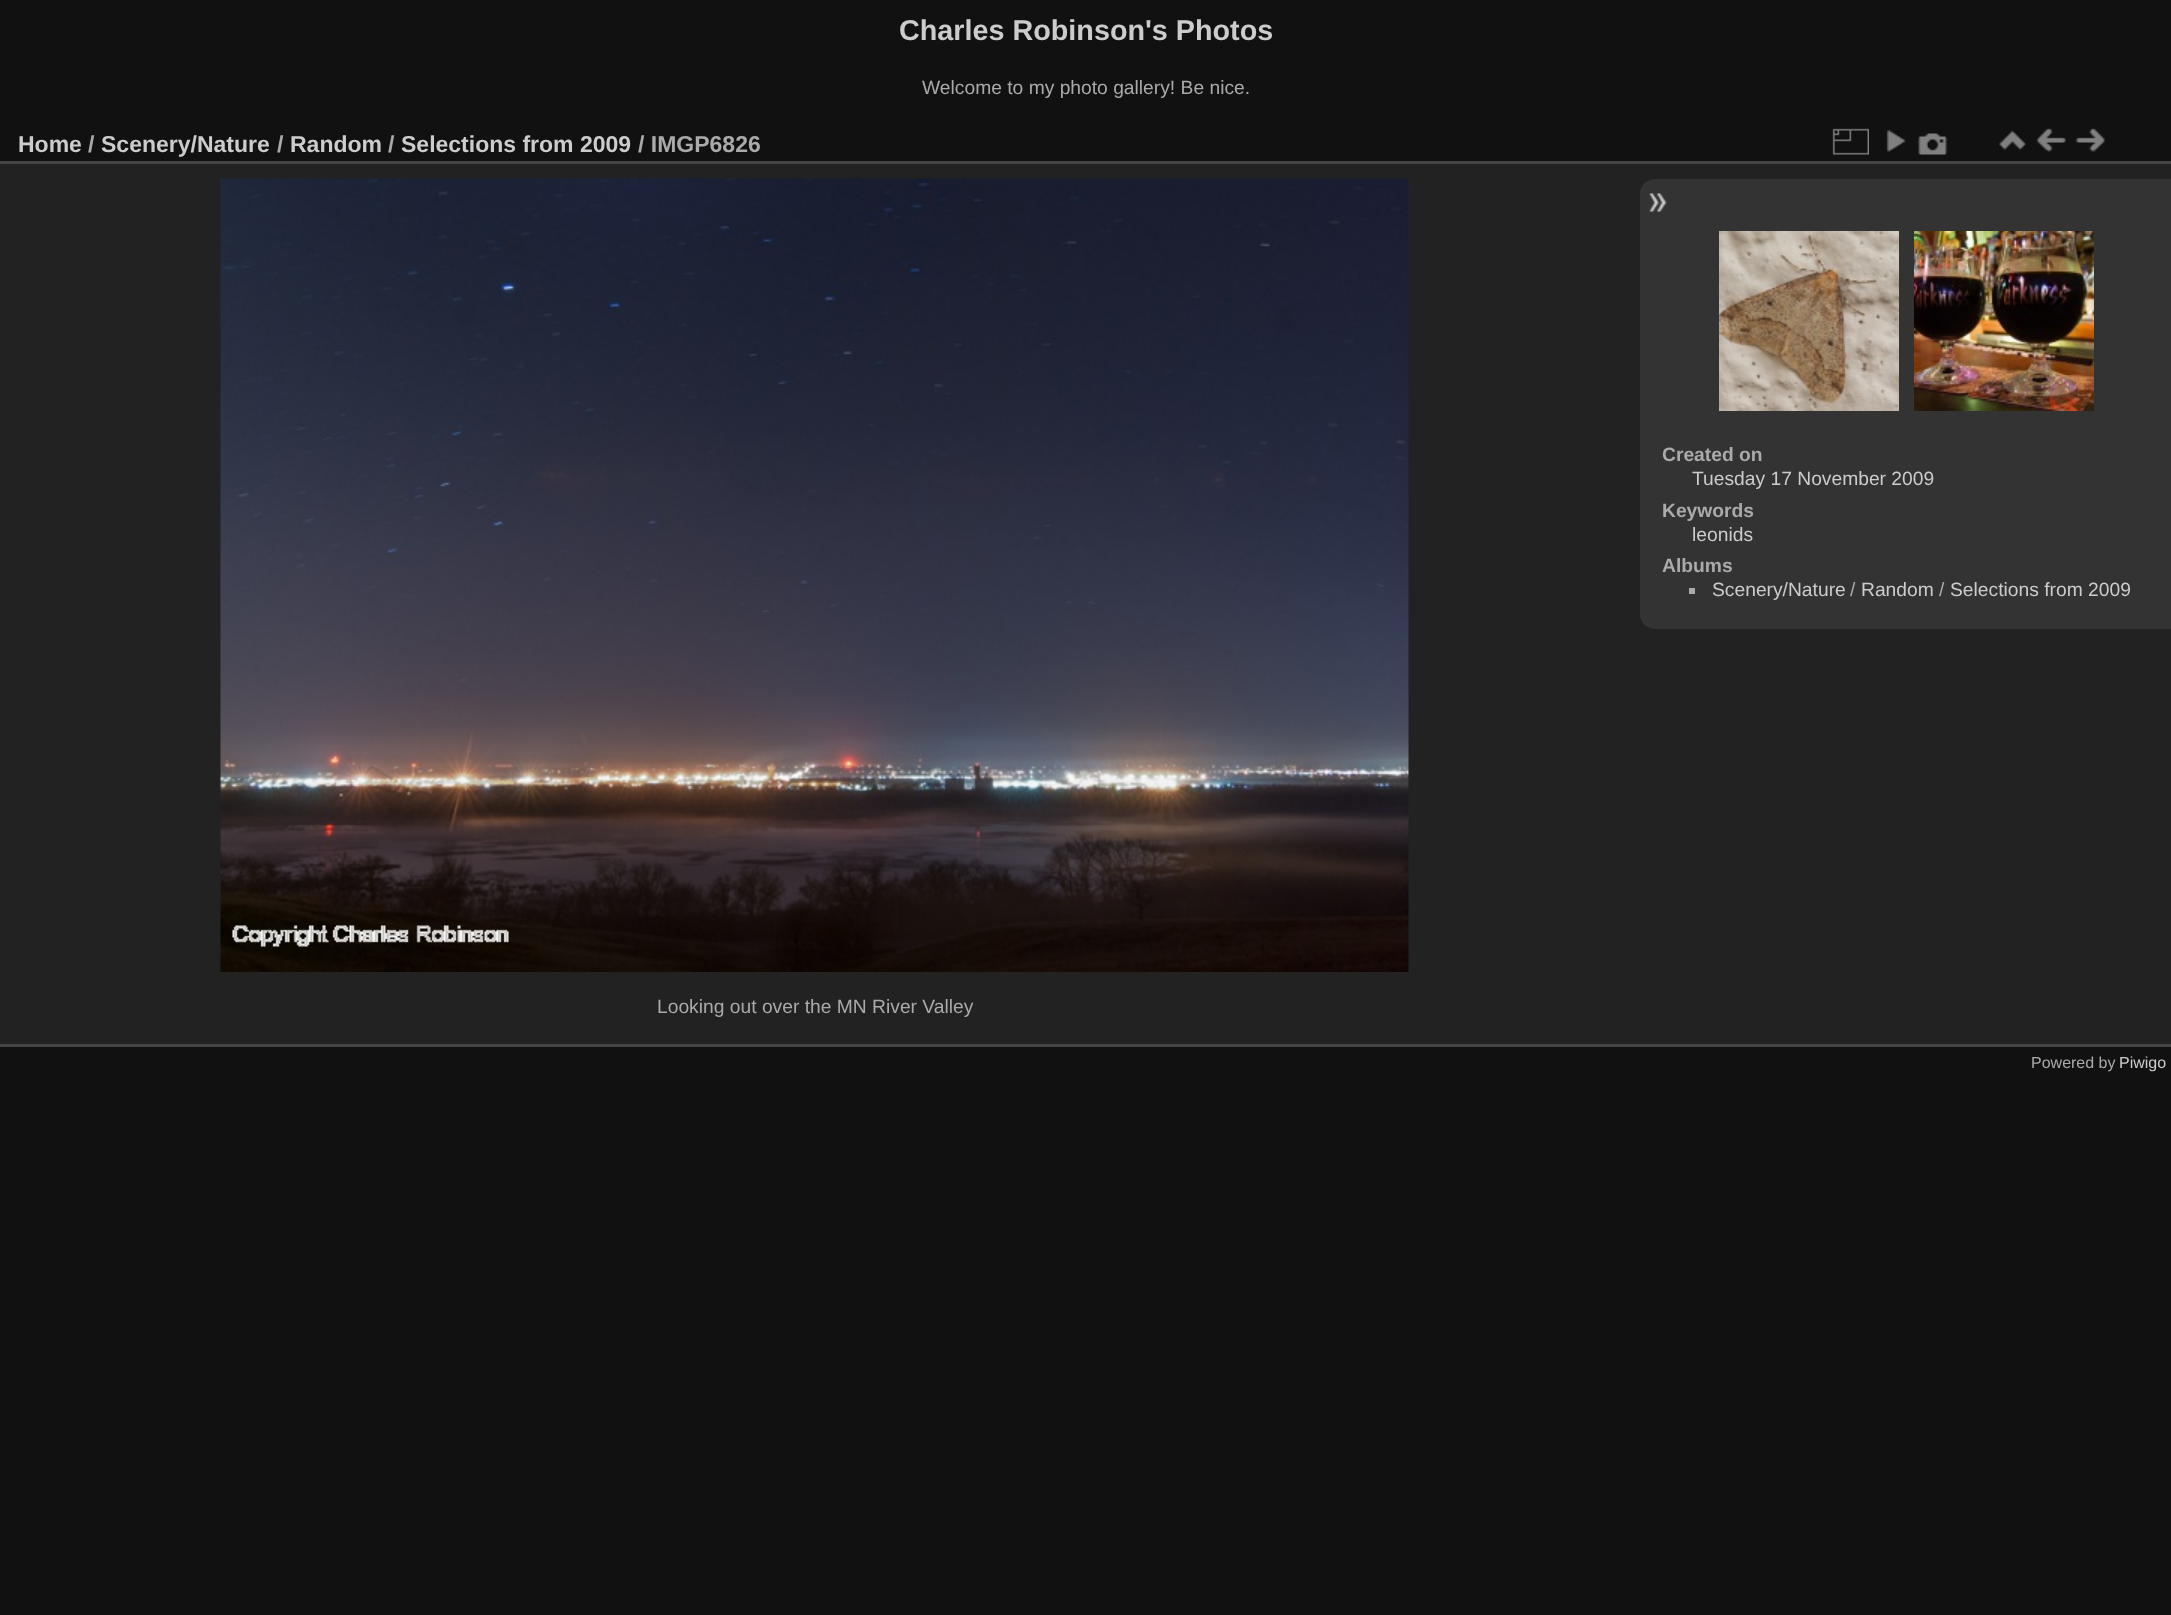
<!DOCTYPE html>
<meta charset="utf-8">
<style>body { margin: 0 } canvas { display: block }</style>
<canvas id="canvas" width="2171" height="1615"></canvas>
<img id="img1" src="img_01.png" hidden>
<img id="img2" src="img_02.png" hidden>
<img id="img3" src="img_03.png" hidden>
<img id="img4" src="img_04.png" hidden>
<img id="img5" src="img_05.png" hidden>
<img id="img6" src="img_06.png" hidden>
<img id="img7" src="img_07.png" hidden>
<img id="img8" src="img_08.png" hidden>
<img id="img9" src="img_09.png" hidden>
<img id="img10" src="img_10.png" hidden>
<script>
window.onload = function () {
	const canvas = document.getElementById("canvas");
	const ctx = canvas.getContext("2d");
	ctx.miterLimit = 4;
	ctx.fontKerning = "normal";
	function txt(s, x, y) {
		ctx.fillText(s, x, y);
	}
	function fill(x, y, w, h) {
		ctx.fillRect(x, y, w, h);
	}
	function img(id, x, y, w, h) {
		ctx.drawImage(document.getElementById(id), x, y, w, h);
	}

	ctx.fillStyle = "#111111";
	fill(0, 0, 2171, 1615);
	ctx.fillStyle = "#222222";
	fill(0, 164, 2171, 880);
	ctx.fillStyle = "#444444";
	fill(0, 1044, 2171, 3);
	fill(0, 161, 2171, 3);
	img("img1", 1832, 128, 37, 27);
	img("img2", 1886, 130, 20, 22);
	img("img3", 1918, 133, 30, 22);
	img("img4", 1999, 130, 27, 21);
	img("img5", 2036, 128, 30, 24);
	img("img6", 2075, 128, 30, 24);
	ctx.fillStyle = "#333333";
	ctx.beginPath();
	ctx.moveTo(1655, 179);
	ctx.lineTo(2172, 179);
	ctx.lineTo(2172, 629);
	ctx.lineTo(1655, 629);
	ctx.bezierCurveTo(1646.5, 629, 1640, 622.5, 1640, 614);
	ctx.lineTo(1640, 194);
	ctx.bezierCurveTo(1640, 185.5, 1646.5, 179, 1655, 179);
	ctx.closePath();
	ctx.fill();
	img("img7", 1649, 193, 18, 19);
	img("img8", 1719, 231, 180, 180);
	img("img9", 1914, 231, 180, 180);
	ctx.fillStyle = "#AAAAAA";
	fill(1689, 588, 6, 6);
	img("img10", 220, 178, 1189, 794);
	ctx.font = "bold 28.75px Liberation Sans";
	ctx.fillStyle = "#CCCCCC";
	txt("Charles Robinson's Photos", 899, 40);
	ctx.font = "19.25px Liberation Sans";
	ctx.fillStyle = "#AAAAAA";
	txt("Welcome to my photo gallery! Be nice.", 922, 94);
	ctx.font = "bold 23px Liberation Sans";
	ctx.fillStyle = "#CCCCCC";
	txt("Home", 18, 152);
	ctx.fillStyle = "#AAAAAA";
	txt("/", 88, 152);
	ctx.fillStyle = "#CCCCCC";
	txt("Scenery/Nature", 101, 152);
	ctx.fillStyle = "#AAAAAA";
	txt("/", 277, 152);
	ctx.fillStyle = "#CCCCCC";
	txt("Random", 290, 152);
	ctx.fillStyle = "#AAAAAA";
	txt("/", 388, 152);
	ctx.fillStyle = "#CCCCCC";
	txt("Selections from 2009", 401, 152);
	ctx.fillStyle = "#AAAAAA";
	txt("/ IMGP6826", 638, 152);
	ctx.font = "bold 19.25px Liberation Sans";
	txt("Created on", 1662, 461);
	ctx.font = "19.25px Liberation Sans";
	ctx.fillStyle = "#CCCCCC";
	txt("Tuesday 17 November 2009", 1692, 485);
	ctx.font = "bold 19.25px Liberation Sans";
	ctx.fillStyle = "#AAAAAA";
	txt("Keywords", 1662, 517);
	ctx.font = "19.25px Liberation Sans";
	ctx.fillStyle = "#CCCCCC";
	txt("leonids", 1692, 541);
	ctx.font = "bold 19.25px Liberation Sans";
	ctx.fillStyle = "#AAAAAA";
	txt("Albums", 1662, 572);
	ctx.font = "19.25px Liberation Sans";
	ctx.fillStyle = "#CCCCCC";
	txt("Scenery/Nature", 1712, 596);
	ctx.fillStyle = "#AAAAAA";
	txt("/", 1850, 596);
	ctx.fillStyle = "#CCCCCC";
	txt("Random", 1861, 596);
	ctx.fillStyle = "#AAAAAA";
	txt("/", 1939, 596);
	ctx.fillStyle = "#CCCCCC";
	txt("Selections from 2009", 1950, 596);
	ctx.fillStyle = "#AAAAAA";
	txt("Looking out over the MN River Valley", 657, 1013);
	ctx.font = "16px Liberation Sans";
	txt("Powered by", 2031, 1068);
	ctx.fillStyle = "#CCCCCC";
	txt("Piwigo", 2119, 1068);
};
</script>
